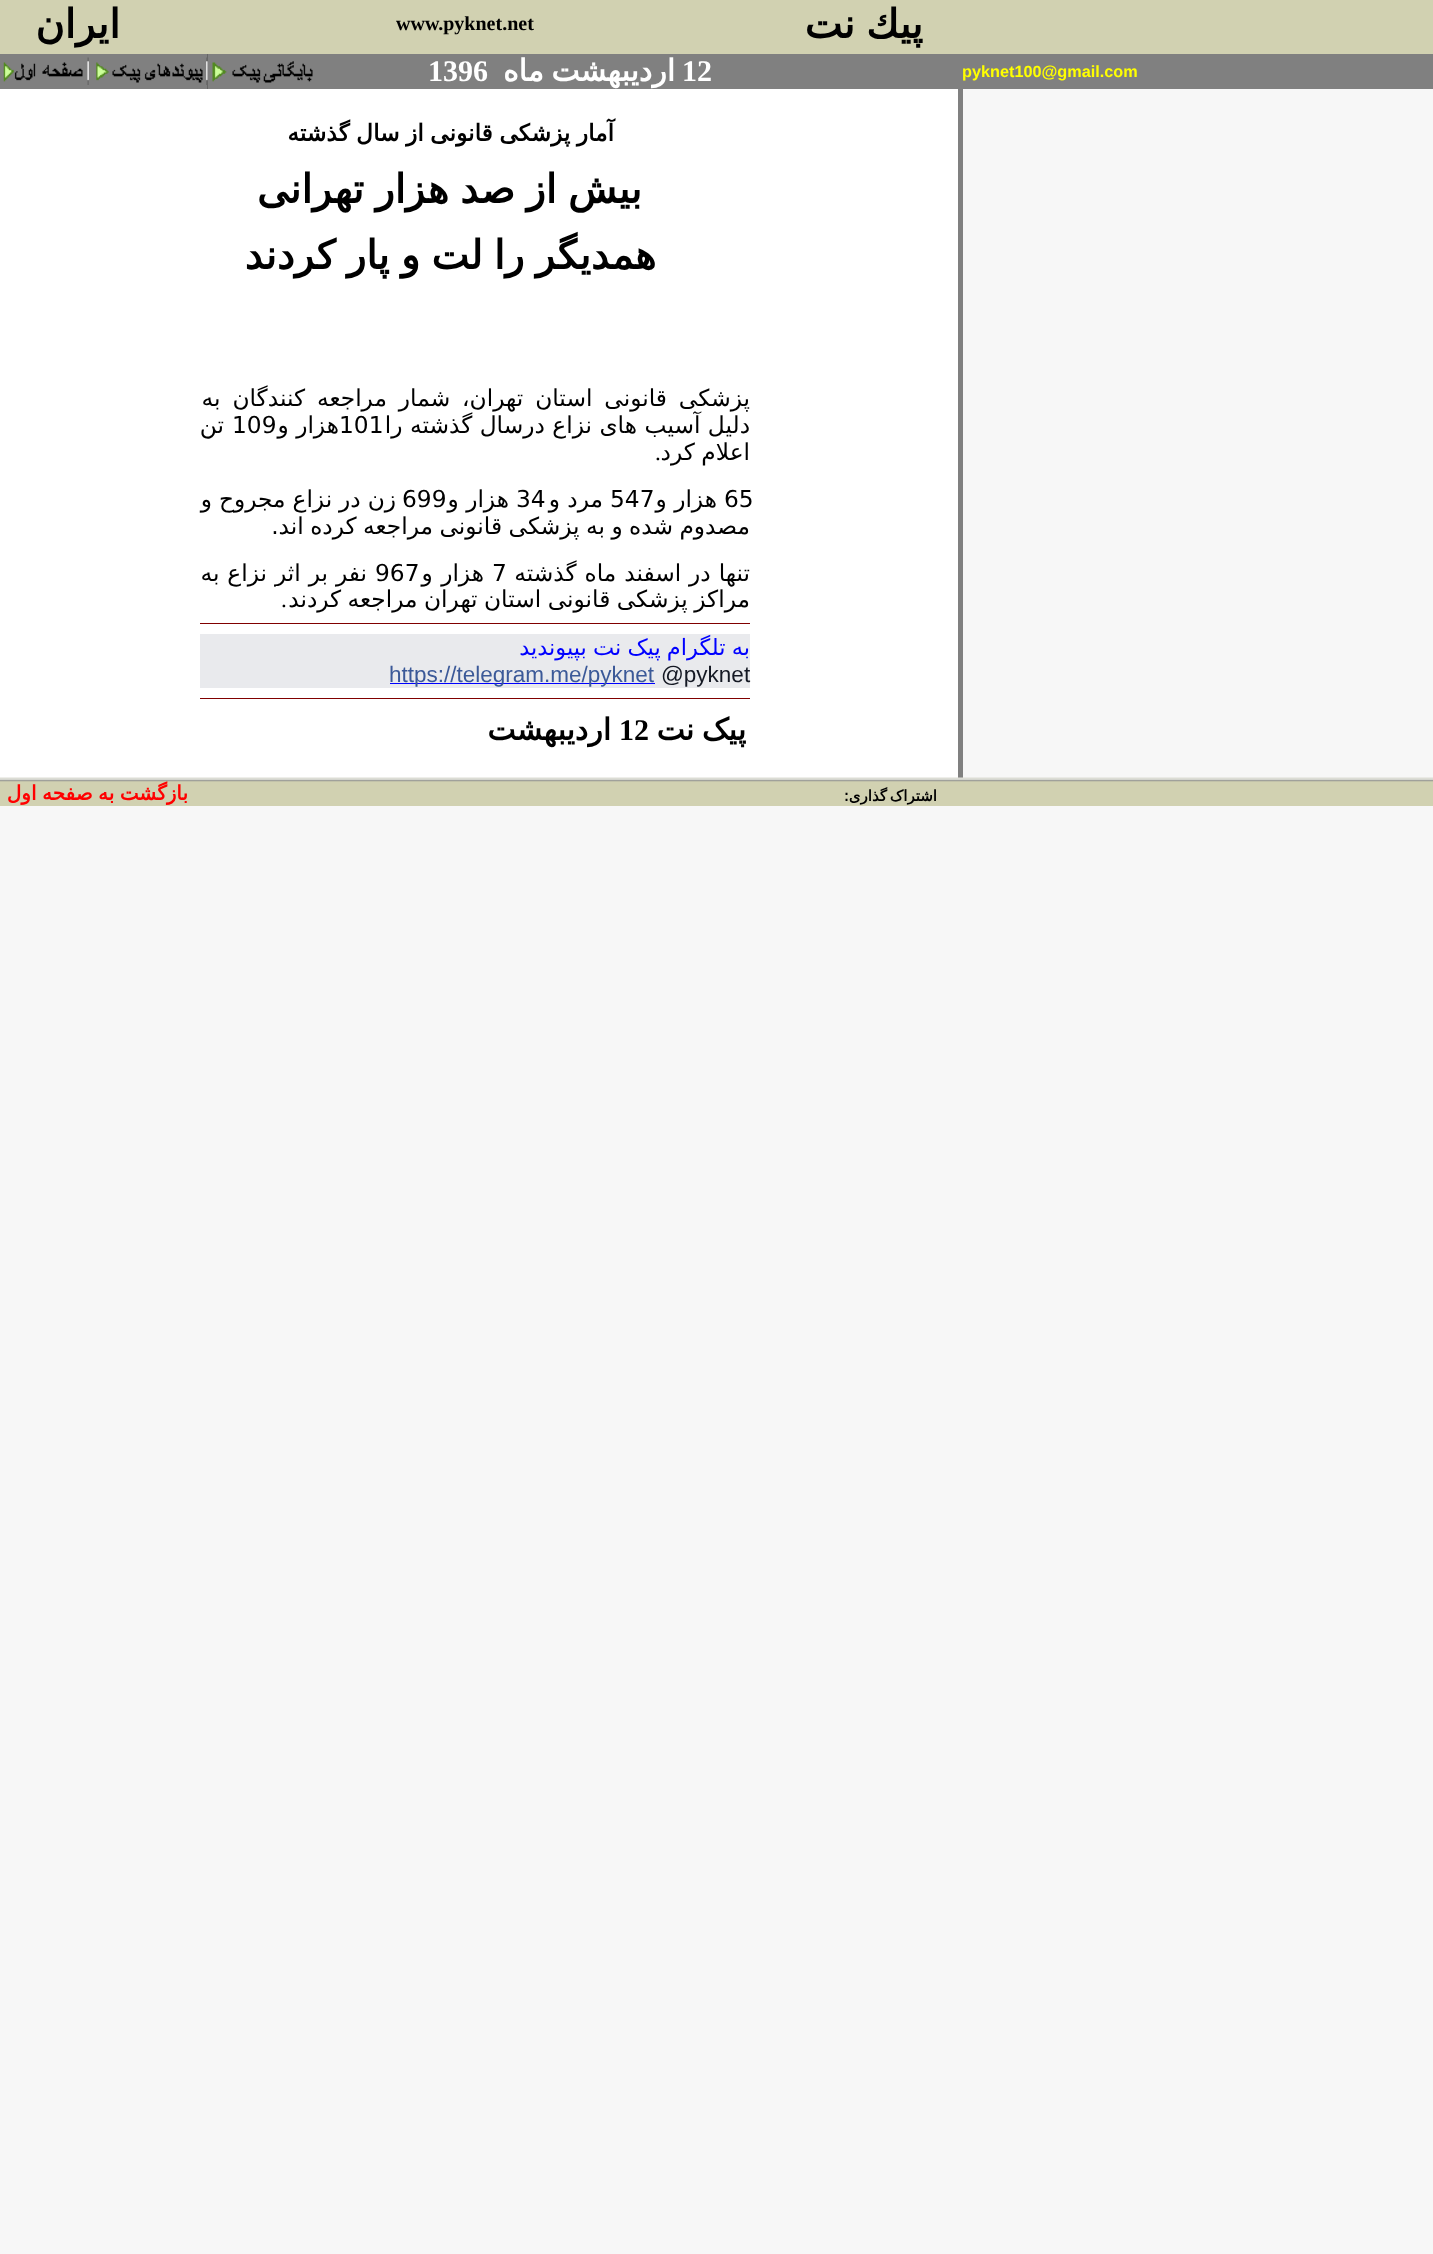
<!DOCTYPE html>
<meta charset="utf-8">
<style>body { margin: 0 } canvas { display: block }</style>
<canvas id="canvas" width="1433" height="2254"></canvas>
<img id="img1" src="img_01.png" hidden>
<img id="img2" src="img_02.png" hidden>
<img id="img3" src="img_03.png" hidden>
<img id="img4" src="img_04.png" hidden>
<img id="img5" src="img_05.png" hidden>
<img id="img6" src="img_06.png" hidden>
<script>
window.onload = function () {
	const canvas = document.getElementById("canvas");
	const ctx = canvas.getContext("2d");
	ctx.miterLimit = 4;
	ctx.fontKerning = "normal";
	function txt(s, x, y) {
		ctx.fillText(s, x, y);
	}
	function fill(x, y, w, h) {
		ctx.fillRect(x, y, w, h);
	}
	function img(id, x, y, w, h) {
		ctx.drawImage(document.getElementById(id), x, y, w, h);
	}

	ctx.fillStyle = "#F7F7F7";
	fill(0, 0, 1433, 2254);
	ctx.fillStyle = "#D1D1B1";
	fill(0, 0, 1433, 54);
	ctx.fillStyle = "#666666";
	fill(207, 54, 1, 35);
	ctx.fillStyle = "#808080";
	fill(208, 54, 1225, 35);
	img("img1", 212, 61, 101, 22);
	fill(0, 54, 207, 35);
	img("img2", 3, 62, 80, 20);
	img("img3", 206, 57, 2, 28);
	img("img4", 96, 62, 107, 21);
	img("img5", 87, 57, 2, 28);
	fill(958, 89, 5, 689);
	ctx.fillStyle = "#FFFFFF";
	fill(0, 89, 958, 689);
	ctx.fillStyle = "#800000";
	fill(200, 623, 550, 1);
	ctx.fillStyle = "#E9EAED";
	fill(200, 634, 550, 54);
	ctx.fillStyle = "#0000FF";
	fill(390, 683, 265, 1);
	ctx.fillStyle = "#800000";
	fill(200, 698, 550, 1);
	ctx.fillStyle = "#D1D1B1";
	fill(0, 781, 1433, 25);
	img("img6", 0, 777, 1433, 5);
	ctx.wordSpacing = "-1.5px";
	ctx.direction = "rtl";
	ctx.font = "bold 40px DejaVu Sans";
	ctx.fillStyle = "#000000";
	txt("پيك نت", 923, 38);
	ctx.wordSpacing = "0px";
	ctx.direction = "ltr";
	ctx.font = "bold 20px Liberation Serif";
	txt("www.pyknet.net", 396, 30);
	ctx.direction = "rtl";
	ctx.font = "bold 40px DejaVu Sans";
	txt("ايران", 120, 38);
	ctx.direction = "ltr";
	ctx.font = "bold 16.25px Liberation Sans";
	ctx.fillStyle = "#FFFF00";
	txt("pyknet100@gmail.com", 962, 77);
	ctx.font = "bold 30px Liberation Serif";
	ctx.fillStyle = "#FFFFFF";
	txt("12", 682, 81);
	ctx.wordSpacing = "-2px";
	ctx.direction = "rtl";
	ctx.font = "bold 30px DejaVu Sans";
	txt("اردیبهشت ماه", 675, 81);
	ctx.wordSpacing = "0px";
	ctx.direction = "ltr";
	ctx.font = "bold 30px Liberation Serif";
	txt("1396", 428, 81);
	ctx.wordSpacing = "-1px";
	ctx.direction = "rtl";
	ctx.font = "bold 23.3px DejaVu Sans";
	ctx.fillStyle = "#000000";
	txt("آمار پزشکی قانونی از سال گذشته", 614, 141);
	ctx.wordSpacing = "-1.5px";
	ctx.font = "bold 40px DejaVu Sans";
	txt("بیش از صد هزار تهرانی", 642, 203);
	txt("همدیگر را لت و پار کردند", 656, 269);
	ctx.wordSpacing = "4.5px";
	ctx.font = "23.3px DejaVu Sans";
	txt("پزشکی قانونی استان تهران، شمار مراجعه کنندگان به", 750, 406);
	ctx.wordSpacing = "0px";
	txt("دلیل آسیب", 750, 433);
	txt("های نزاع درسال گذشته را", 637, 433);
	ctx.direction = "ltr";
	txt("101", 339, 433);
	ctx.direction = "rtl";
	txt("هزار و", 339, 433);
	ctx.direction = "ltr";
	txt("109", 232, 433);
	ctx.direction = "rtl";
	txt("تن", 224, 433);
	ctx.wordSpacing = "-1px";
	txt("اعلام کرد", 750, 460);
	ctx.wordSpacing = "0px";
	ctx.direction = "ltr";
	ctx.font = "23.3px Liberation Serif";
	txt(".", 655, 460);
	ctx.font = "23.3px DejaVu Sans";
	txt("65", 724, 507);
	ctx.direction = "rtl";
	txt("هزار و", 717, 507);
	ctx.direction = "ltr";
	txt("547", 610, 507);
	ctx.direction = "rtl";
	txt("مرد و", 603, 507);
	ctx.direction = "ltr";
	txt("34", 516, 507);
	ctx.direction = "rtl";
	txt("هزار و", 509, 507);
	ctx.direction = "ltr";
	txt("699", 402, 507);
	ctx.wordSpacing = "-0.5px";
	ctx.direction = "rtl";
	txt("زن در نزاع مجروح و", 396, 507);
	ctx.wordSpacing = "0px";
	txt("مصدوم", 750, 534);
	ctx.wordSpacing = "-1px";
	txt("شده و به پزشکی قانونی مراجعه کرده اند.", 673, 534);
	ctx.wordSpacing = "0.5px";
	txt("تنها در اسفند ماه گذشته", 750, 581);
	ctx.wordSpacing = "0px";
	ctx.direction = "ltr";
	txt("7", 492, 581);
	ctx.wordSpacing = "1px";
	ctx.direction = "rtl";
	txt("هزار و", 484, 581);
	ctx.wordSpacing = "0px";
	ctx.direction = "ltr";
	txt("967", 375, 581);
	ctx.wordSpacing = "0.5px";
	ctx.direction = "rtl";
	txt("نفر بر اثر نزاع به", 367, 581);
	ctx.wordSpacing = "-1px";
	txt("مراکز پزشکی قانونی استان تهران مراجعه کردند", 750, 607);
	ctx.wordSpacing = "0px";
	ctx.direction = "ltr";
	ctx.font = "23.3px Liberation Serif";
	txt(".", 281, 607);
	ctx.fillStyle = "#FFFFFF";
	fill(276, 586, 2, 1);
	ctx.wordSpacing = "-1px";
	ctx.direction = "rtl";
	ctx.font = "22.5px DejaVu Sans";
	ctx.fillStyle = "#0000FF";
	txt("به تلگرام پیک نت بپیوندید", 750, 655);
	ctx.wordSpacing = "0px";
	ctx.direction = "ltr";
	ctx.font = "22.5px Liberation Sans";
	ctx.fillStyle = "#141823";
	txt("@pyknet", 661, 682);
	ctx.fillStyle = "#3B5998";
	txt("https://telegram.me/pyknet", 389, 682);
	ctx.wordSpacing = "-2px";
	ctx.direction = "rtl";
	ctx.font = "bold 30px DejaVu Sans";
	ctx.fillStyle = "#000000";
	txt("پیک نت", 746, 740);
	ctx.wordSpacing = "0px";
	ctx.direction = "ltr";
	ctx.font = "bold 30px Liberation Serif";
	txt("12", 619, 740);
	ctx.direction = "rtl";
	ctx.font = "bold 30px DejaVu Sans";
	txt("اردیبهشت", 611, 740);
	ctx.font = "bold 15px DejaVu Sans";
	txt("اشتراک", 937, 801);
	txt("گذاری:", 887, 801);
	ctx.wordSpacing = "-1px";
	ctx.font = "bold 20px DejaVu Sans";
	ctx.fillStyle = "#FF0000";
	txt("بازگشت به صفحه اول", 188, 800);
};
</script>
